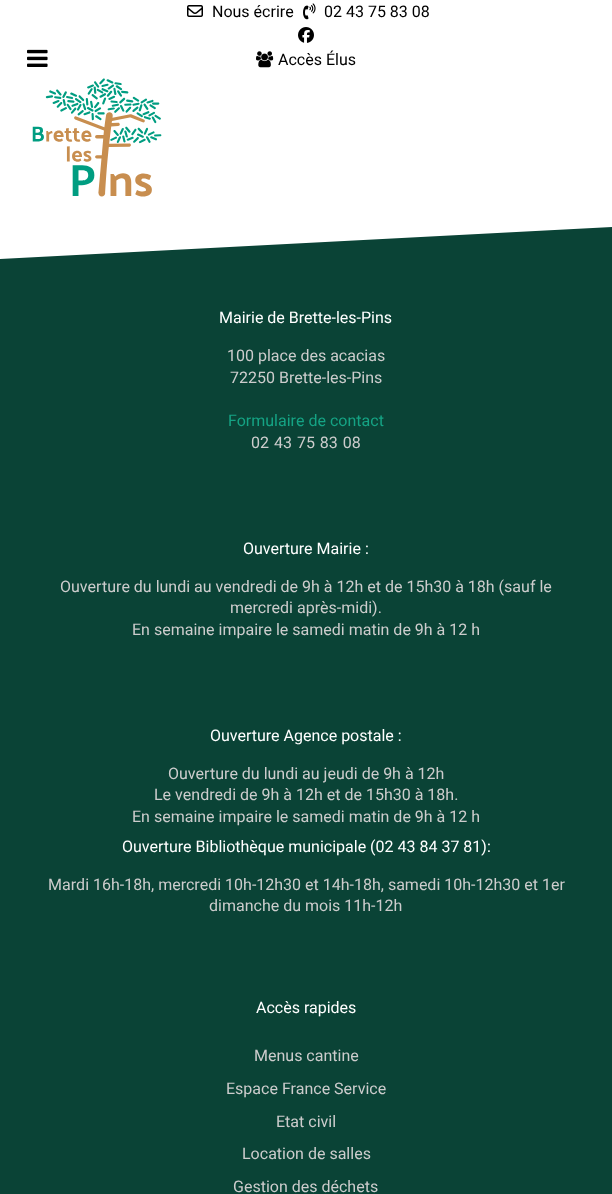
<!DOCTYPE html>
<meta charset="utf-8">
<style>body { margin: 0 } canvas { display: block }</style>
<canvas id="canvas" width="612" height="1194"></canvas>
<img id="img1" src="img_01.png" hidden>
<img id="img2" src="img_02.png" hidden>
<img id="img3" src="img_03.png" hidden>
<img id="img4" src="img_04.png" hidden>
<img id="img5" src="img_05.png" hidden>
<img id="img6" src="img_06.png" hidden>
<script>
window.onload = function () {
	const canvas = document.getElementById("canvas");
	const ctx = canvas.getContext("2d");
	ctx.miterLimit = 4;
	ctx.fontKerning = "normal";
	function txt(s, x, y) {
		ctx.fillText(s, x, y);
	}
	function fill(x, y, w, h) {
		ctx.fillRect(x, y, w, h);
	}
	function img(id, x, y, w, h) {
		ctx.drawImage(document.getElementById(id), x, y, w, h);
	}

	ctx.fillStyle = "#FFFFFF";
	fill(0, 0, 612, 1194);
	img("img1", 27, 49, 21, 18);
	img("img2", 187, 5, 16, 12);
	img("img3", 303, 3, 13, 17);
	img("img4", 298, 27, 16, 16);
	img("img5", 256, 51, 18, 17);
	img("img6", 32, 78, 130, 119);
	ctx.fillStyle = "#0A4336";
	ctx.beginPath();
	ctx.moveTo(0, 259);
	ctx.lineTo(612, 227);
	ctx.lineTo(612, 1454);
	ctx.lineTo(0, 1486);
	ctx.closePath();
	ctx.fill();
	ctx.font = "16px Heebo";
	ctx.fillStyle = "#000000";
	txt("Nous écrire", 212, 17);
	txt("02 43 75 83 08", 324, 17);
	txt("Accès Élus", 278, 65);
	ctx.font = "16px Roboto";
	ctx.fillStyle = "#FFFFFF";
	txt("Mairie de Brette-les-Pins", 219, 323);
	ctx.font = "16px Heebo";
	ctx.fillStyle = "#CCCCCC";
	txt("100 place des acacias", 227, 361);
	txt("72250 Brette-les-Pins", 230, 383);
	ctx.fillStyle = "#15A384";
	txt("Formulaire de contact", 228, 426);
	ctx.wordSpacing = "1px";
	ctx.fillStyle = "#CCCCCC";
	txt("02 43 75 83 08", 251, 448);
	ctx.wordSpacing = "0px";
	ctx.font = "16px Roboto";
	ctx.fillStyle = "#FFFFFF";
	txt("Ouverture Mairie :", 243, 554);
	ctx.font = "16px Heebo";
	ctx.fillStyle = "#CCCCCC";
	txt("Ouverture du lundi au vendredi de 9h à 12h et de 15h30 à 18h (sauf le", 60, 592);
	txt("mercredi après-midi).", 230, 613);
	txt("En semaine impaire le samedi matin de 9h à 12 h", 132, 635);
	ctx.font = "16px Roboto";
	ctx.fillStyle = "#FFFFFF";
	txt("Ouverture Agence postale :", 210, 741);
	ctx.font = "16px Heebo";
	ctx.fillStyle = "#CCCCCC";
	txt("Ouverture du lundi au jeudi de 9h à 12h", 168, 779);
	txt("Le vendredi de 9h à 12h et de 15h30 à 18h.", 154, 800);
	txt("En semaine impaire le samedi matin de 9h à 12 h", 132, 822);
	ctx.font = "16px Roboto";
	ctx.fillStyle = "#FFFFFF";
	txt("Ouverture Bibliothèque municipale (02 43 84 37 81):", 122, 852);
	ctx.font = "16px Heebo";
	ctx.fillStyle = "#CCCCCC";
	txt("Mardi 16h-18h, mercredi 10h-12h30 et 14h-18h, samedi 10h-12h30 et 1er", 48, 890);
	txt("dimanche du mois 11h-12h", 209, 911);
	ctx.font = "16px Roboto";
	ctx.fillStyle = "#FFFFFF";
	txt("Accès rapides", 256, 1013);
	ctx.font = "16px Heebo";
	ctx.fillStyle = "#CCCCCC";
	txt("Menus cantine", 254, 1061);
	txt("Espace France Service", 226, 1094);
	txt("Etat civil", 276, 1127);
	txt("Location de salles", 242, 1159);
	txt("Gestion des déchets", 233, 1192);
};
</script>
